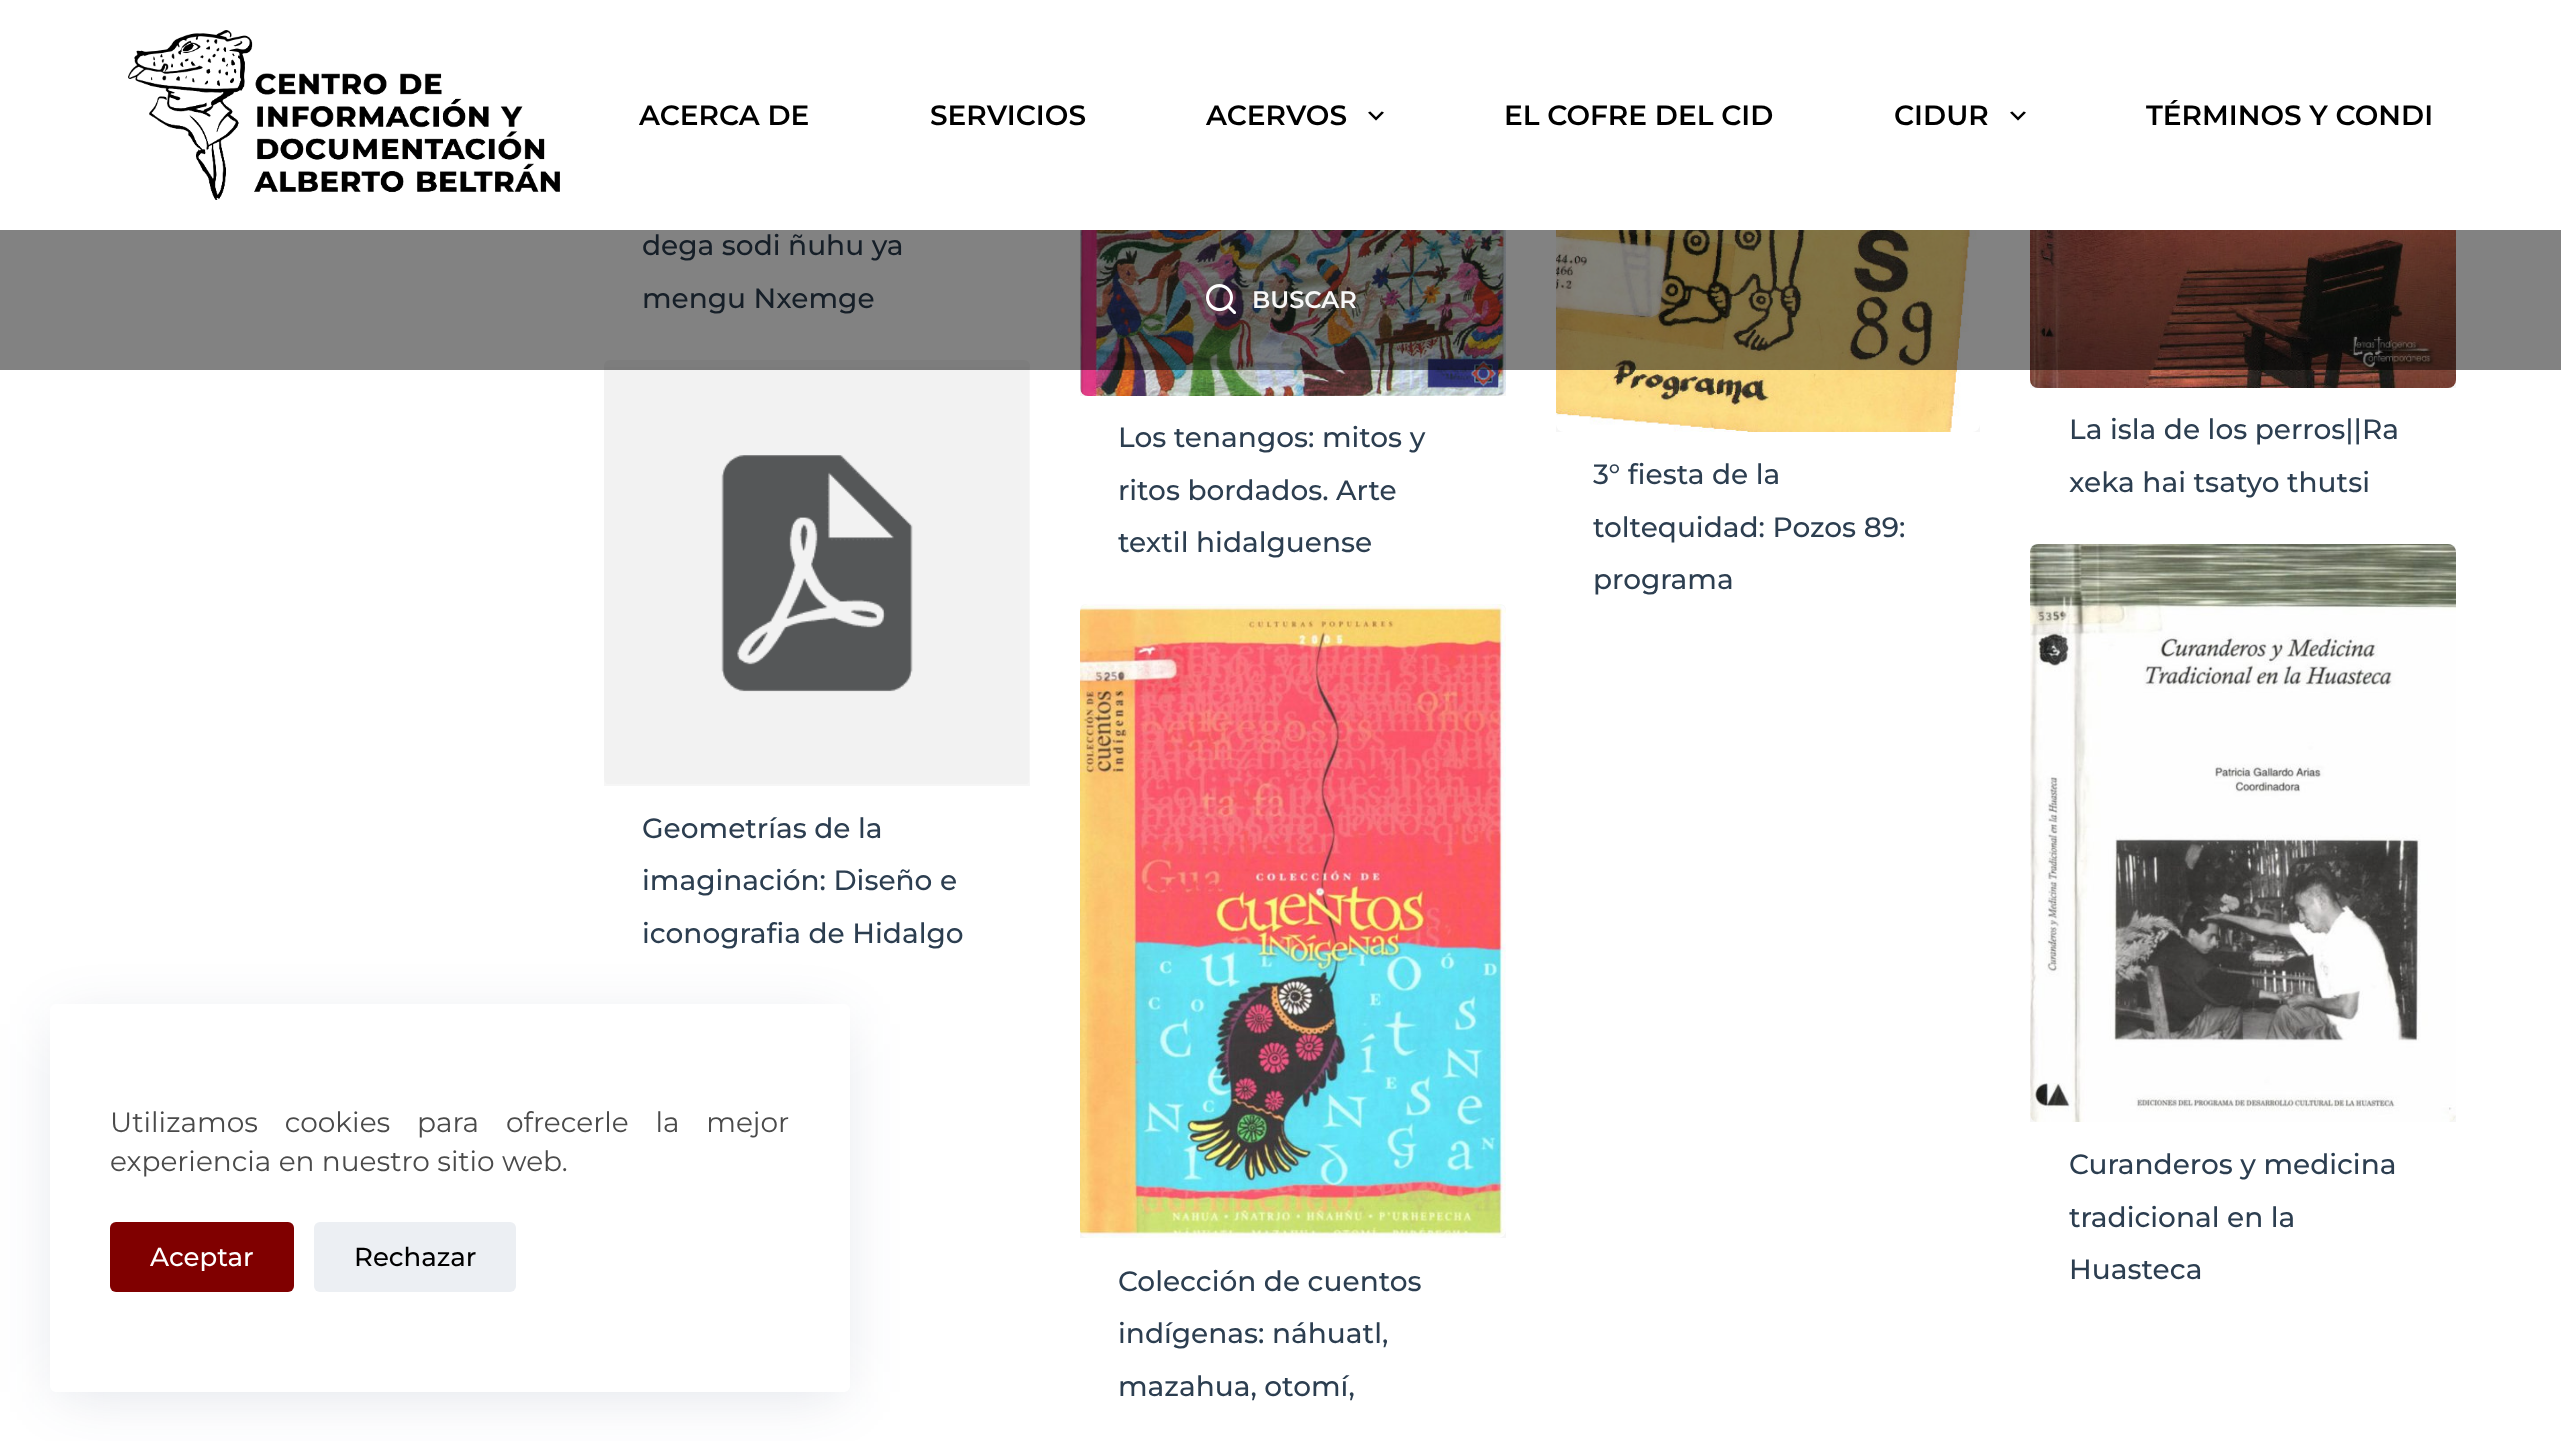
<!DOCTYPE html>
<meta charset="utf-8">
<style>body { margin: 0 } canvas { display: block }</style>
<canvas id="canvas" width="2561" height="1441"></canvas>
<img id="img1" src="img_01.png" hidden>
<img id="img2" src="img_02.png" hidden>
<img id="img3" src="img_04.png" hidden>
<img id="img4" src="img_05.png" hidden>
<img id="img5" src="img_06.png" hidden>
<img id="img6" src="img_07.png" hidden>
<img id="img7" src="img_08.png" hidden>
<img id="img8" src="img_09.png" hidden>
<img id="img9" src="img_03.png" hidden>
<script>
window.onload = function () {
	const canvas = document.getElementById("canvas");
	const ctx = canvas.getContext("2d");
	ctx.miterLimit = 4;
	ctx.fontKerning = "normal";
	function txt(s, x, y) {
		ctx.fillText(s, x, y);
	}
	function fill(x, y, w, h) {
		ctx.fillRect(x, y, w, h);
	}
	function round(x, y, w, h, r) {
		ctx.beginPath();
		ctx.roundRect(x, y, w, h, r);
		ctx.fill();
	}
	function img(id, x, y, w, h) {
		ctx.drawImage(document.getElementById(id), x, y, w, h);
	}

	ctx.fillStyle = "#FFFFFF";
	fill(0, 0, 2561, 1441);
	ctx.fillStyle = "rgba(34, 56, 101, 0.15)";
	ctx.filter = "blur(30px)";
	ctx.beginPath();
	ctx.rect(60, 1024, 780, 368);
	ctx.fill();
	ctx.filter = "none";
	ctx.fillStyle = "#FFFFFF";
	round(50, 1004, 800, 388, 6);
	ctx.fillStyle = "#800000";
	round(110, 1222, 184, 70, 6);
	ctx.fillStyle = "#ECEFF3";
	round(314, 1222, 202, 70, 6);
	img("img1", 128, 30, 432, 170);
	img("img2", 1368, 111, 16, 10);
	img("img2", 2010, 111, 16, 10);
	ctx.fillStyle = "#F6F6F6";
	fill(1080, 388, 426, 8);
	img("img3", 1080, 230, 426, 166);
	fill(1556, 424, 424, 8);
	img("img4", 1556, 230, 424, 202);
	fill(2030, 380, 426, 8);
	img("img5", 2030, 230, 426, 158);
	ctx.beginPath();
	ctx.roundRect(604, 360, 426, 426, [6, 6, 0, 0]);
	ctx.fill();
	img("img6", 604, 367, 425, 417);
	ctx.beginPath();
	ctx.roundRect(2030, 544, 426, 578, [6, 6, 0, 0]);
	ctx.fill();
	img("img7", 2030, 544, 426, 578);
	ctx.beginPath();
	ctx.roundRect(1080, 604, 426, 634, [6, 6, 0, 0]);
	ctx.fill();
	img("img8", 1080, 604, 426, 634);
	ctx.wordSpacing = "19.5px";
	ctx.font = "28px Montserrat";
	ctx.fillStyle = "#4A4A4A";
	txt("Utilizamos cookies para ofrecerle la mejor", 110, 1132);
	ctx.wordSpacing = "0px";
	txt("experiencia en nuestro sitio web.", 110, 1171);
	ctx.font = "500 26px Montserrat";
	ctx.fillStyle = "#FFFFFF";
	txt("Aceptar", 150, 1266);
	ctx.fillStyle = "#000000";
	txt("Rechazar", 354, 1266);
	ctx.font = "600 28px Montserrat";
	txt("ACERCA DE", 639, 125);
	txt("SERVICIOS", 930, 125);
	txt("ACERVOS", 1206, 125);
	txt("EL COFRE DEL CID", 1504, 125);
	txt("CIDUR", 1894, 125);
	txt("TÉRMINOS Y CONDI", 2146, 125);
	ctx.font = "500 28px Montserrat";
	ctx.fillStyle = "#2C3E50";
	txt("dega sodi ñuhu ya", 642, 255);
	txt("mengu Nxemge", 642, 308);
	ctx.fillStyle = "rgba(0, 0, 0, 0.49)";
	fill(0, 230, 2561, 140);
	img("img9", 1206, 284, 30, 30);
	ctx.font = "600 24px Montserrat";
	ctx.fillStyle = "#F8F8F8";
	txt("BUSCAR", 1252, 308);
	ctx.font = "500 28px Montserrat";
	ctx.fillStyle = "#2C3E50";
	txt("Los tenangos: mitos y", 1118, 447);
	txt("ritos bordados. Arte", 1118, 500);
	txt("textil hidalguense", 1118, 552);
	txt("3° fiesta de la", 1593, 484);
	txt("toltequidad: Pozos 89:", 1593, 537);
	txt("programa", 1593, 589);
	txt("La isla de los perros||Ra", 2069, 439);
	txt("xeka hai tsatyo thutsi", 2069, 492);
	txt("Geometrías de la", 642, 838);
	txt("imaginación: Diseño e", 642, 890);
	txt("iconografia de Hidalgo", 642, 943);
	txt("Curanderos y medicina", 2069, 1174);
	txt("tradicional en la", 2069, 1227);
	txt("Huasteca", 2069, 1279);
	txt("Colección de cuentos", 1118, 1291);
	txt("indígenas: náhuatl,", 1118, 1343);
	txt("mazahua, otomí,", 1118, 1396);
};
</script>
